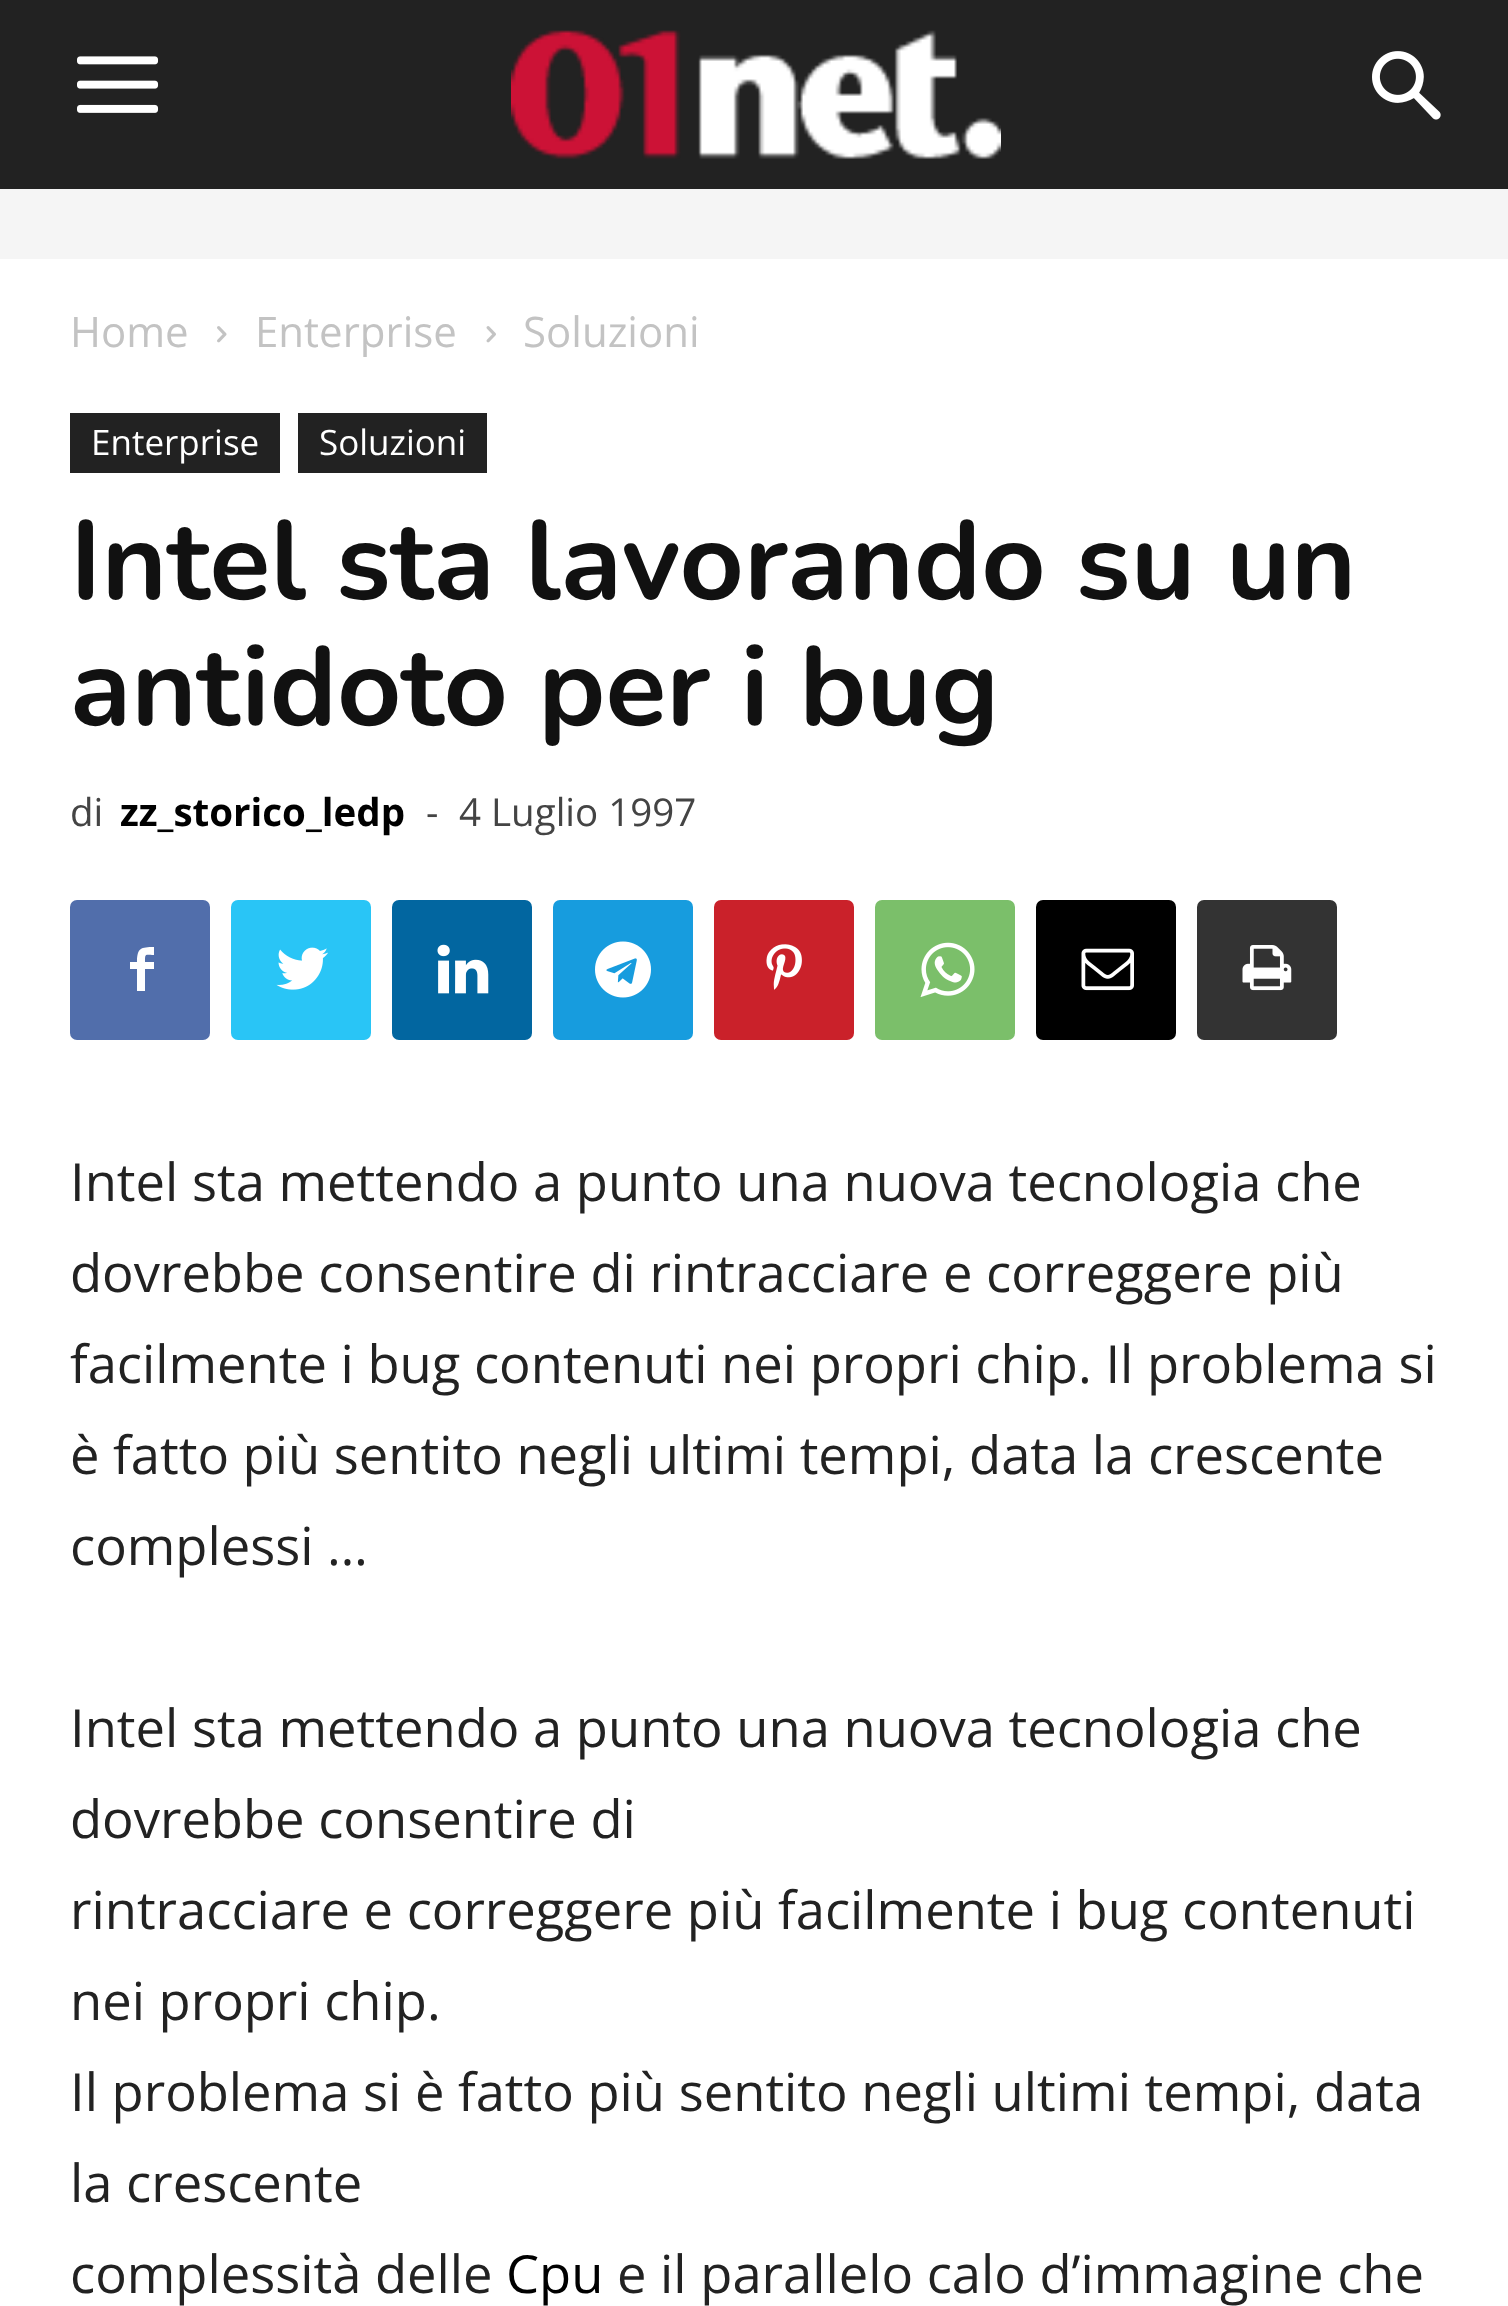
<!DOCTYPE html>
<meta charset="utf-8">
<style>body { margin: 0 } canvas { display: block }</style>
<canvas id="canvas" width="1508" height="2306"></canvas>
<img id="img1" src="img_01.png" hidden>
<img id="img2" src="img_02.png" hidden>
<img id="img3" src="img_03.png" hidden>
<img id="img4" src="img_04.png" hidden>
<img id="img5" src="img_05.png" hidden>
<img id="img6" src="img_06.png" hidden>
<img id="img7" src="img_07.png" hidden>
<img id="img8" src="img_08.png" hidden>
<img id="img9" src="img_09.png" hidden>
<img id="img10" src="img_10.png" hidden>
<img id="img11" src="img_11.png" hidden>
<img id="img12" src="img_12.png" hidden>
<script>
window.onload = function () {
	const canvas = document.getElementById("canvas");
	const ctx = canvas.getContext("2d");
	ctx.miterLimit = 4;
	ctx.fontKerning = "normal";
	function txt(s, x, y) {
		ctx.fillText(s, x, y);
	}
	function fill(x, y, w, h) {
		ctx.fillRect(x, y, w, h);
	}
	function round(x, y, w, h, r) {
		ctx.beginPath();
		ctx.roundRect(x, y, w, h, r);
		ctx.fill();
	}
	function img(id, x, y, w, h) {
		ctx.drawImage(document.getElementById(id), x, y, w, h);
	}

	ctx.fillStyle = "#FFFFFF";
	fill(0, 0, 1508, 2306);
	ctx.fillStyle = "#222222";
	fill(0, 0, 1508, 189);
	img("img1", 77, 56, 82, 57);
	img("img2", 511, 30, 490, 129);
	img("img3", 1372, 51, 69, 69);
	ctx.fillStyle = "#F5F5F5";
	fill(0, 189, 1508, 70);
	img("img4", 217, 326, 10, 17);
	img("img5", 486, 326, 10, 17);
	ctx.fillStyle = "#222222";
	fill(70, 413, 210, 60);
	fill(298, 413, 189, 60);
	ctx.fillStyle = "#516EAB";
	round(70, 900, 140, 140, 7);
	ctx.fillStyle = "#FFFFFF";
	ctx.beginPath();
	ctx.moveTo(154, 955);
	ctx.bezierCurveTo(145, 955, 145, 953, 145, 962);
	ctx.lineTo(154, 962);
	ctx.lineTo(154, 969);
	ctx.lineTo(145, 969);
	ctx.lineTo(145, 991);
	ctx.lineTo(137, 991);
	ctx.lineTo(137, 969);
	ctx.lineTo(130, 969);
	ctx.lineTo(130, 962);
	ctx.lineTo(137, 962);
	ctx.bezierCurveTo(137, 948, 141, 947, 154, 947);
	ctx.closePath();
	ctx.fill();
	ctx.fillStyle = "#29C5F6";
	round(231, 900, 140, 140, 7);
	img("img6", 276, 947, 52, 43);
	ctx.fillStyle = "#0266A0";
	round(392, 900, 140, 140, 7);
	img("img7", 437, 944, 52, 50);
	ctx.fillStyle = "#179CDE";
	round(553, 900, 140, 140, 7);
	img("img8", 595, 941, 56, 57);
	ctx.fillStyle = "#CA212A";
	round(714, 900, 140, 140, 7);
	img("img9", 766, 944, 36, 46);
	ctx.fillStyle = "#7BBF6A";
	round(875, 900, 140, 140, 7);
	img("img10", 920, 942, 55, 55);
	ctx.fillStyle = "#000000";
	round(1036, 900, 140, 140, 7);
	img("img11", 1081, 948, 53, 43);
	ctx.fillStyle = "#333333";
	round(1197, 900, 140, 140, 7);
	img("img12", 1242, 945, 50, 46);
	ctx.font = "42px Open Sans";
	ctx.fillStyle = "#C3C3C3";
	txt("Home", 70, 347);
	txt("Enterprise", 255, 347);
	txt("Soluzioni", 523, 347);
	ctx.font = "35px Open Sans";
	ctx.fillStyle = "#FFFFFF";
	txt("Enterprise", 91, 455);
	txt("Soluzioni", 319, 455);
	ctx.font = "200 112px Nunito";
	ctx.fillStyle = "#111111";
	txt("Intel sta lavorando su un", 70, 599);
	txt("antidoto per i bug", 70, 725);
	ctx.font = "38.5px Open Sans";
	ctx.fillStyle = "#444444";
	txt("di", 70, 826);
	ctx.font = "bold 38.5px Open Sans";
	ctx.fillStyle = "#000000";
	txt("zz_storico_ledp", 120, 826);
	ctx.font = "38.5px Open Sans";
	ctx.fillStyle = "#444444";
	txt("-", 426, 826);
	txt("4 Luglio 1997", 459, 826);
	ctx.font = "52.5px Open Sans";
	ctx.fillStyle = "#222222";
	txt("Intel sta mettendo a punto una nuova tecnologia che", 70, 1201);
	txt("dovrebbe consentire di rintracciare e correggere più", 70, 1292);
	txt("facilmente i bug contenuti nei propri chip. Il problema si", 70, 1383);
	txt("è fatto più sentito negli ultimi tempi, data la crescente", 70, 1474);
	txt("complessi …", 70, 1565);
	txt("Intel sta mettendo a punto una nuova tecnologia che", 70, 1747);
	txt("dovrebbe consentire di", 70, 1838);
	txt("rintracciare e correggere più facilmente i bug contenuti", 70, 1929);
	txt("nei propri chip.", 70, 2020);
	txt("Il problema si è fatto più sentito negli ultimi tempi, data", 70, 2111);
	txt("la crescente", 70, 2202);
	txt("complessità delle", 70, 2293);
	ctx.fillStyle = "#000000";
	txt("Cpu", 506, 2293);
	ctx.fillStyle = "#222222";
	txt("e il parallelo calo d’immagine che", 617, 2293);
};
</script>
